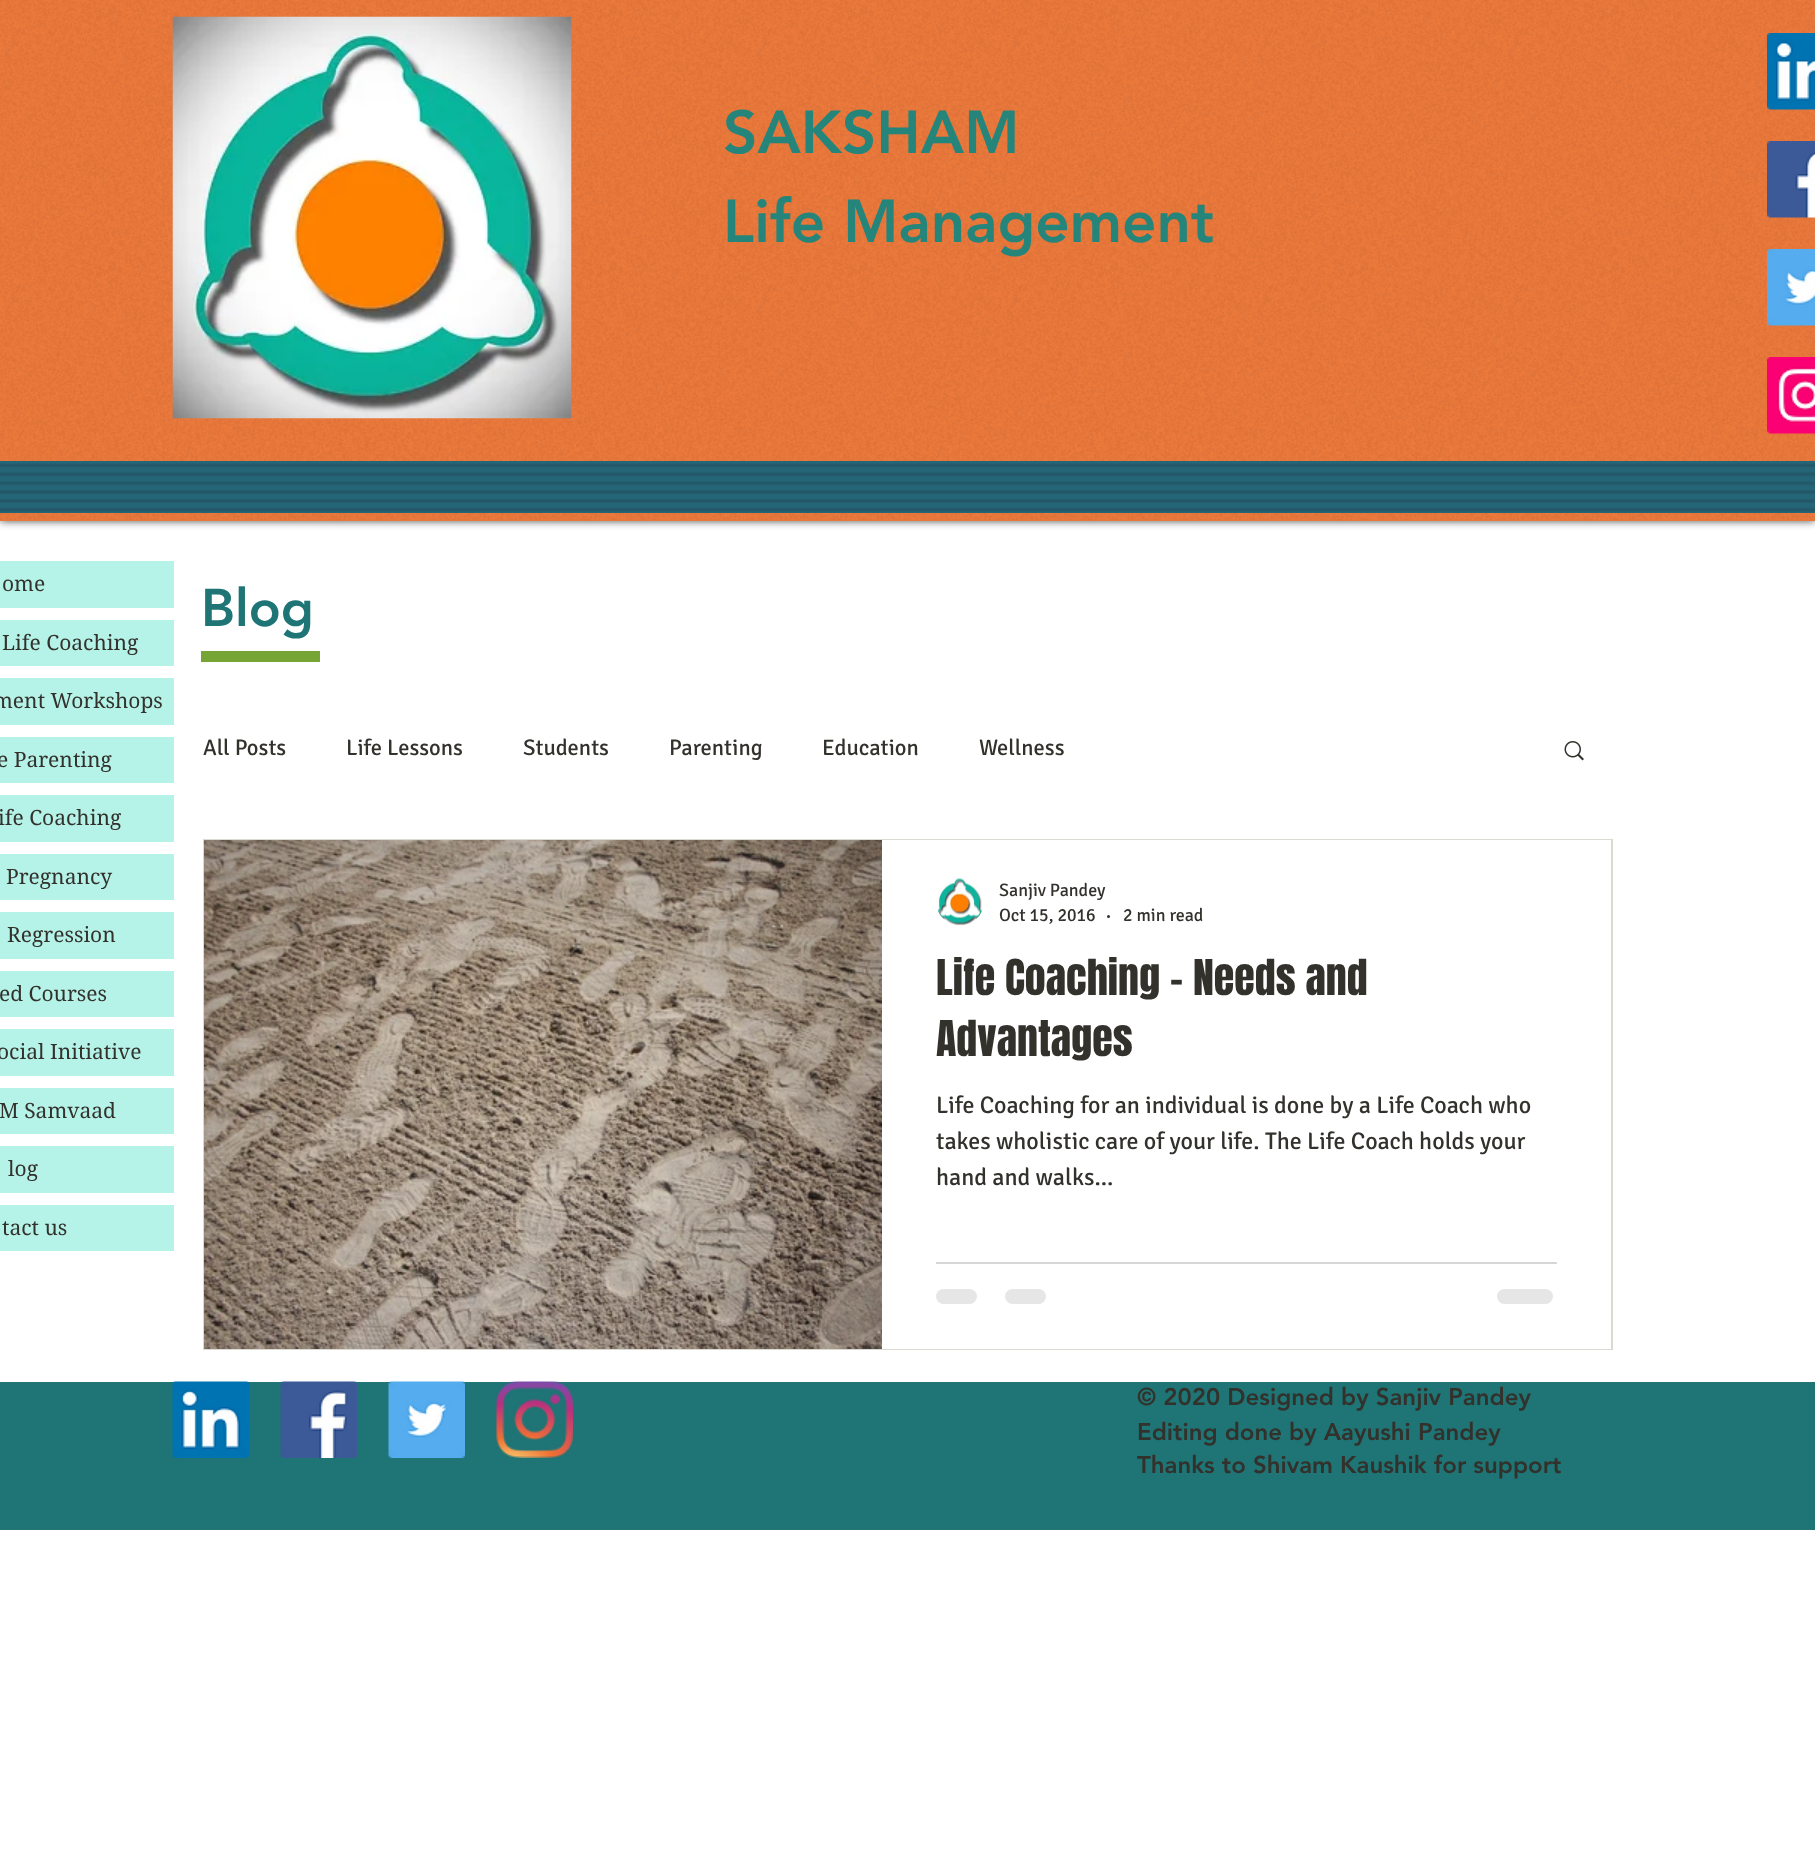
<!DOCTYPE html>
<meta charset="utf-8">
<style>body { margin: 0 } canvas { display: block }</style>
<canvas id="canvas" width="1815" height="1874"></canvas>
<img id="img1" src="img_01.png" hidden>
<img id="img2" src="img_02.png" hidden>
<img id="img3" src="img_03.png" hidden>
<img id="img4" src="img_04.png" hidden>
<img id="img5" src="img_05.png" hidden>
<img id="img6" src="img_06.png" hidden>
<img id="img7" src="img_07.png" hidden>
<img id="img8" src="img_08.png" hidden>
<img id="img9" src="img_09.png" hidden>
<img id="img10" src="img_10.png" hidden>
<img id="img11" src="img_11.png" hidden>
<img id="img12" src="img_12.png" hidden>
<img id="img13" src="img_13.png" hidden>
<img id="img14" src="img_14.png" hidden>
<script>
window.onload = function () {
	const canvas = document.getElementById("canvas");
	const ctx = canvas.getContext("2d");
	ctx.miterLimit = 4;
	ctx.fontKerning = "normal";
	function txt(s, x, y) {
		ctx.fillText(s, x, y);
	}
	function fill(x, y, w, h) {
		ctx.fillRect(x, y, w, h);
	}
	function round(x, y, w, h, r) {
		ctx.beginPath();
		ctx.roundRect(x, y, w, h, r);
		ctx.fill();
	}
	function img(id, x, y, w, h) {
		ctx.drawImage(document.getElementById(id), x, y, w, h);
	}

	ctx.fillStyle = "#FFFFFF";
	fill(0, 0, 1815, 1874);
	ctx.fillStyle = "rgba(0, 0, 0, 0.7)";
	ctx.filter = "blur(4px)";
	ctx.beginPath();
	ctx.rect(0, 0, 1815, 521);
	ctx.fill();
	ctx.filter = "none";
	ctx.fillStyle = "#ED793B";
	fill(0, 0, 1815, 521);
	img("img1", 0, 0, 1815, 521);
	img("img2", 172, 16, 400, 403);
	img("img3", 1767, 33, 48, 77);
	img("img4", 1767, 141, 48, 77);
	img("img5", 1767, 249, 48, 77);
	img("img6", 1767, 357, 48, 77);
	ctx.fillStyle = "#256578";
	fill(0, 461, 1815, 52);
	img("img7", 0, 463, 1815, 49);
	ctx.fillStyle = "#B5F3E8";
	fill(0, 561, 174, 47);
	fill(0, 620, 174, 46);
	fill(0, 678, 174, 47);
	fill(0, 737, 174, 46);
	fill(0, 795, 174, 47);
	fill(0, 854, 174, 46);
	fill(0, 912, 174, 47);
	fill(0, 971, 174, 46);
	fill(0, 1029, 174, 47);
	fill(0, 1088, 174, 46);
	fill(0, 1146, 174, 47);
	fill(0, 1205, 174, 46);
	ctx.fillStyle = "#76A535";
	fill(201, 651, 119, 11);
	img("img8", 1564, 741, 20, 20);
	ctx.strokeStyle = "#DADAD0";
	ctx.lineWidth = 2;
	ctx.strokeRect(204, 840, 1408, 509);
	img("img9", 204, 840, 678, 509);
	ctx.fillStyle = "#FFFFFF";
	fill(882, 840, 729, 509);
	img("img10", 936, 878, 47, 48);
	ctx.fillStyle = "#33312C";
	ctx.beginPath();
	ctx.arc(1108.5, 916.5, 1.5, 0, Math.PI * 2);
	ctx.fill();
	ctx.fillStyle = "#D6D6D5";
	fill(936, 1262, 621, 2);
	ctx.fillStyle = "#E7E6E6";
	round(936, 1289, 41, 15, 7.5);
	round(1005, 1289, 41, 15, 7.5);
	round(1497, 1289, 56, 15, 7.5);
	ctx.fillStyle = "#1F7575";
	fill(0, 1382, 1815, 148);
	img("img11", 172, 1381, 77, 77);
	img("img12", 280, 1381, 77, 77);
	img("img13", 388, 1381, 77, 77);
	img("img14", 496, 1381, 77, 77);
	ctx.font = "900 60px 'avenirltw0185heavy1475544'";
	ctx.fillStyle = "#25857B";
	txt("SAKSHAM", 723, 153);
	txt("Life Management", 723, 242);
	ctx.font = "21px 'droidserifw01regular'";
	ctx.fillStyle = "#33312C";
	txt("ome", 2, 591);
	txt("Life Coaching", 2, 650);
	txt("ment Workshops", -7, 708);
	txt("e Parenting", -3, 767);
	txt("ife Coaching", -2, 825);
	txt("Pregnancy", 6, 884);
	txt("Regression", 7, 942);
	txt("ed Courses", -1, 1001);
	txt("ocial Initiative", -3, 1059);
	txt("M Samvaad", -1, 1118);
	txt("log", 8, 1176);
	txt("tact us", 2, 1235);
	ctx.font = "900 52.5px 'avenirltw0185heavy1475544'";
	ctx.fillStyle = "#1F7575";
	txt("Blog", 201, 626);
	ctx.font = "22.5px Signika";
	ctx.fillStyle = "#33312C";
	txt("All Posts", 203, 755);
	txt("Life Lessons", 346, 755);
	txt("Students", 523, 755);
	txt("Parenting", 669, 755);
	txt("Education", 822, 755);
	txt("Wellness", 979, 755);
	ctx.font = "18px Signika";
	txt("Sanjiv Pandey", 999, 896);
	txt("Oct 15, 2016", 999, 921);
	txt("2 min read", 1123, 921);
	ctx.font = "42px Anton";
	txt("Life Coaching – Needs and", 936, 995);
	txt("Advantages", 936, 1056);
	ctx.font = "24px Signika";
	txt("Life Coaching for an individual is done by a Life Coach who", 936, 1113);
	txt("takes wholistic care of your life. The Life Coach holds your", 936, 1149);
	txt("hand and walks...", 936, 1185);
	ctx.font = "900 24px 'avenirltw0185heavy1475544'";
	txt("© 2020 Designed by Sanjiv Pandey", 1137, 1405);
	txt("Editing done by Aayushi Pandey", 1137, 1440);
	txt("Thanks to Shivam Kaushik for support", 1137, 1473);
};
</script>
